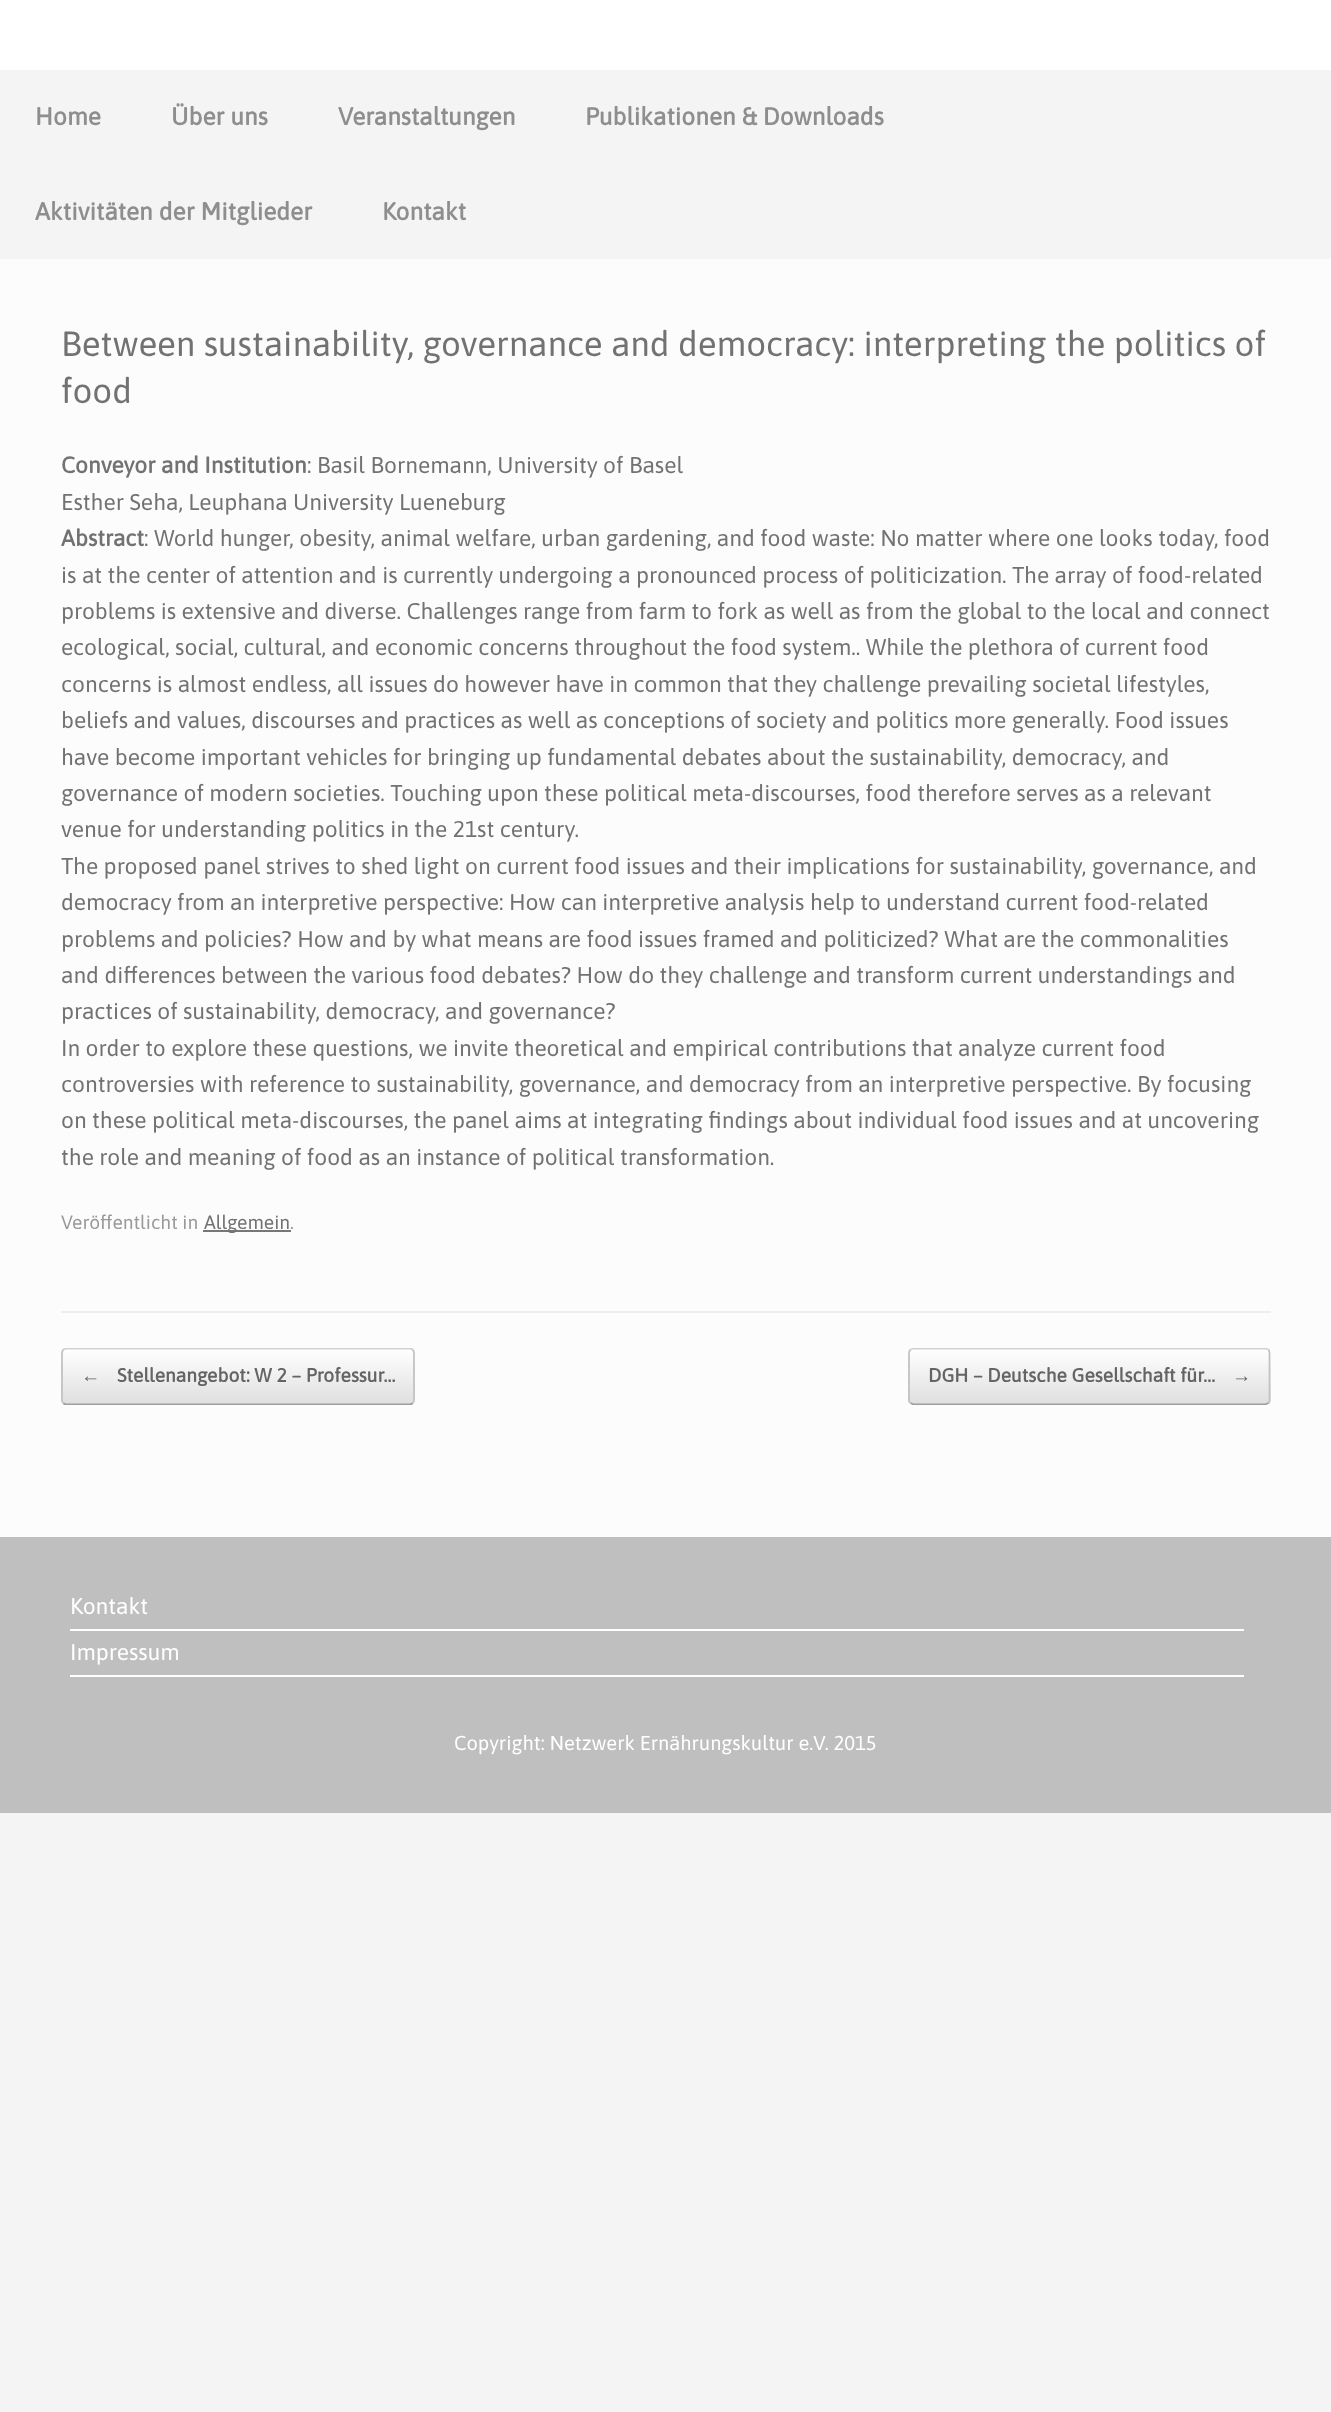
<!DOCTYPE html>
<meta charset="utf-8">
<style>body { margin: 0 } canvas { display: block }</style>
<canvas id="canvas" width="1331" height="2412"></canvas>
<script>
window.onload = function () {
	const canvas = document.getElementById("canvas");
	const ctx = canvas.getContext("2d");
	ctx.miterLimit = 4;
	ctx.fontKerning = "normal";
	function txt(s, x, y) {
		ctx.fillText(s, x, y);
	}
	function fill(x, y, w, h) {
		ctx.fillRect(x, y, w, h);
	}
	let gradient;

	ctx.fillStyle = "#F4F4F4";
	fill(0, 0, 1331, 2412);
	ctx.fillStyle = "#FFFFFF";
	fill(0, 0, 1331, 70);
	ctx.fillStyle = "#FCFCFC";
	fill(0, 259, 1331, 1278);
	ctx.fillStyle = "#EEEEEE";
	fill(61, 1311, 1210, 2);
	ctx.fillStyle = "#777777";
	fill(203, 1230, 88, 2);
	ctx.save();
	ctx.beginPath();
	ctx.roundRect(61, 1348, 354, 57, 5);
	ctx.clip();
	gradient = ctx.createLinearGradient(63, 1404, 63, 1349);
	gradient.addColorStop(0, "#DFDFDF");
	gradient.addColorStop(1, "#FFFFFF");
	ctx.fillStyle = gradient;
	fill(61, 1349, 354, 55);
	ctx.restore();
	ctx.save();
	ctx.beginPath();
	ctx.rect(61, 1348, 1210, 57);
	ctx.clip();
	ctx.beginPath();
	ctx.moveTo(63.5, 1349.5);
	ctx.bezierCurveTo(64, 1349, 65.5, 1348.5, 66.5, 1348.5);
	ctx.lineTo(409.5, 1348.5);
	ctx.bezierCurveTo(410.5, 1348.5, 412, 1349, 412.5, 1349.5);
	ctx.strokeStyle = "#D2D2D2";
	ctx.lineWidth = 1.8;
	ctx.stroke();
	ctx.restore();
	ctx.beginPath();
	ctx.moveTo(412.5, 1349.5);
	ctx.bezierCurveTo(413.5, 1350.5, 414, 1351.5, 414, 1353);
	ctx.lineTo(414, 1400);
	ctx.bezierCurveTo(414, 1401, 413.5, 1402.5, 412.5, 1403);
	ctx.strokeStyle = "#C3C3C3";
	ctx.lineWidth = 1.8;
	ctx.stroke();
	ctx.save();
	ctx.beginPath();
	ctx.rect(61, 1348, 1210, 57);
	ctx.clip();
	ctx.beginPath();
	ctx.moveTo(412.5, 1403);
	ctx.bezierCurveTo(412, 1404, 410.5, 1404.5, 409.5, 1404.5);
	ctx.lineTo(66.5, 1404.5);
	ctx.bezierCurveTo(65.5, 1404.5, 64, 1404, 63.5, 1403);
	ctx.strokeStyle = "#9F9F9F";
	ctx.stroke();
	ctx.restore();
	ctx.beginPath();
	ctx.moveTo(63.5, 1403);
	ctx.bezierCurveTo(62.5, 1402.5, 62, 1401, 62, 1400);
	ctx.lineTo(62, 1353);
	ctx.bezierCurveTo(62, 1351.5, 62.5, 1350.5, 63.5, 1349.5);
	ctx.stroke();
	ctx.save();
	ctx.beginPath();
	ctx.roundRect(908, 1348, 363, 57, 5);
	ctx.clip();
	gradient = ctx.createLinearGradient(910, 1404, 910, 1349);
	gradient.addColorStop(0, "#DFDFDF");
	gradient.addColorStop(1, "#FFFFFF");
	ctx.fillStyle = gradient;
	fill(908, 1349, 363, 55);
	gradient = ctx.createLinearGradient(910, 1458, 910, 1404);
	gradient.addColorStop(0, "#DFDFDF");
	gradient.addColorStop(1, "#FFFFFF");
	ctx.fillStyle = gradient;
	fill(908, 1404, 363, 1);
	ctx.restore();
	ctx.save();
	ctx.beginPath();
	ctx.rect(61, 1348, 1210, 57);
	ctx.clip();
	ctx.beginPath();
	ctx.moveTo(910.5, 1349.5);
	ctx.lineTo(913.5, 1348.5);
	ctx.lineTo(1265, 1348.5);
	ctx.lineTo(1268.5, 1349.5);
	ctx.strokeStyle = "#D2D2D2";
	ctx.stroke();
	ctx.restore();
	ctx.beginPath();
	ctx.moveTo(1268.5, 1349.5);
	ctx.bezierCurveTo(1269, 1350.5, 1269.5, 1351.5, 1269.5, 1353);
	ctx.lineTo(1269.5, 1400);
	ctx.bezierCurveTo(1269.5, 1401, 1269, 1402.5, 1268.5, 1403);
	ctx.stroke();
	ctx.save();
	ctx.beginPath();
	ctx.rect(61, 1348, 1210, 57);
	ctx.clip();
	ctx.beginPath();
	ctx.moveTo(1268.5, 1403);
	ctx.lineTo(1265, 1404.5);
	ctx.lineTo(913.5, 1404.5);
	ctx.lineTo(910.5, 1403);
	ctx.strokeStyle = "#9F9F9F";
	ctx.stroke();
	ctx.restore();
	ctx.beginPath();
	ctx.moveTo(910.5, 1403);
	ctx.bezierCurveTo(909.5, 1402.5, 909, 1401, 909, 1400);
	ctx.lineTo(909, 1353);
	ctx.bezierCurveTo(909, 1351.5, 909.5, 1350.5, 910.5, 1349.5);
	ctx.stroke();
	ctx.fillStyle = "#BFBFBF";
	fill(0, 1537, 1331, 276);
	ctx.fillStyle = "#FFFFFF";
	fill(70, 1629, 1174, 2);
	fill(70, 1675, 1174, 2);
	ctx.font = "bold 24.5px Asap";
	ctx.fillStyle = "#8E8E8E";
	txt("Home", 35, 125);
	txt("Über uns", 171, 125);
	txt("Veranstaltungen", 338, 125);
	txt("Publikationen & Downloads", 585, 125);
	txt("Aktivitäten der Mitglieder", 35, 220);
	txt("Kontakt", 382, 220);
	ctx.font = "35px Asap";
	ctx.fillStyle = "#727272";
	txt("Between sustainability, governance and democracy: interpreting the politics of", 61, 356);
	txt("food", 61, 403);
	ctx.font = "bold 22.75px Asap";
	txt("Conveyor and Institution", 61, 473);
	ctx.font = "22.75px Asap";
	txt(": Basil Bornemann, University of Basel", 307, 473);
	txt("Esther Seha, Leuphana University Lueneburg", 61, 510);
	ctx.font = "bold 22.75px Asap";
	txt("Abstract", 61, 546);
	ctx.font = "22.75px Asap";
	txt(": World hunger, obesity, animal welfare, urban gardening, and food waste: No matter where one looks today, food", 144, 546);
	txt("is at the center of attention and is currently undergoing a pronounced process of politicization. The array of food-related", 61, 583);
	txt("problems is extensive and diverse. Challenges range from farm to fork as well as from the global to the local and connect", 61, 619);
	txt("ecological, social, cultural, and economic concerns throughout the food system.. While the plethora of current food", 61, 655);
	txt("concerns is almost endless, all issues do however have in common that they challenge prevailing societal lifestyles,", 61, 692);
	txt("beliefs and values, discourses and practices as well as conceptions of society and politics more generally. Food issues", 61, 728);
	txt("have become important vehicles for bringing up fundamental debates about the sustainability, democracy, and", 61, 765);
	txt("governance of modern societies. Touching upon these political meta-discourses, food therefore serves as a relevant", 61, 801);
	txt("venue for understanding politics in the 21st century.", 61, 837);
	txt("The proposed panel strives to shed light on current food issues and their implications for sustainability, governance, and", 61, 874);
	txt("democracy from an interpretive perspective: How can interpretive analysis help to understand current food-related", 61, 910);
	txt("problems and policies? How and by what means are food issues framed and politicized? What are the commonalities", 61, 947);
	txt("and differences between the various food debates? How do they challenge and transform current understandings and", 61, 983);
	txt("practices of sustainability, democracy, and governance?", 61, 1019);
	txt("In order to explore these questions, we invite theoretical and empirical contributions that analyze current food", 61, 1056);
	txt("controversies with reference to sustainability, governance, and democracy from an interpretive perspective. By focusing", 61, 1092);
	txt("on these political meta-discourses, the panel aims at integrating findings about individual food issues and at uncovering", 61, 1128);
	txt("the role and meaning of food as an instance of political transformation.", 61, 1165);
	ctx.font = "19.25px Asap";
	ctx.fillStyle = "#999999";
	txt("Veröffentlicht in", 61, 1229);
	ctx.fillStyle = "#727272";
	txt("Allgemein", 204, 1229);
	ctx.fillStyle = "#999999";
	txt(".", 290, 1229);
	ctx.font = "bold 19.25px Liberation Serif";
	ctx.fillStyle = "#646464";
	txt("←", 81, 1382);
	ctx.font = "bold 19.25px Asap";
	txt("Stellenangebot: W 2 – Professur…", 117, 1382);
	txt("DGH – Deutsche Gesellschaft für…", 928, 1382);
	ctx.font = "bold 19.25px Liberation Serif";
	txt("→", 1232, 1382);
	ctx.font = "22.75px Asap";
	ctx.fillStyle = "#FFFFFF";
	txt("Kontakt", 70, 1614);
	txt("Impressum", 70, 1660);
	ctx.font = "20.1px Asap";
	txt("Copyright: Netzwerk Ernährungskultur e.V. 2015", 454, 1750);
};
</script>
